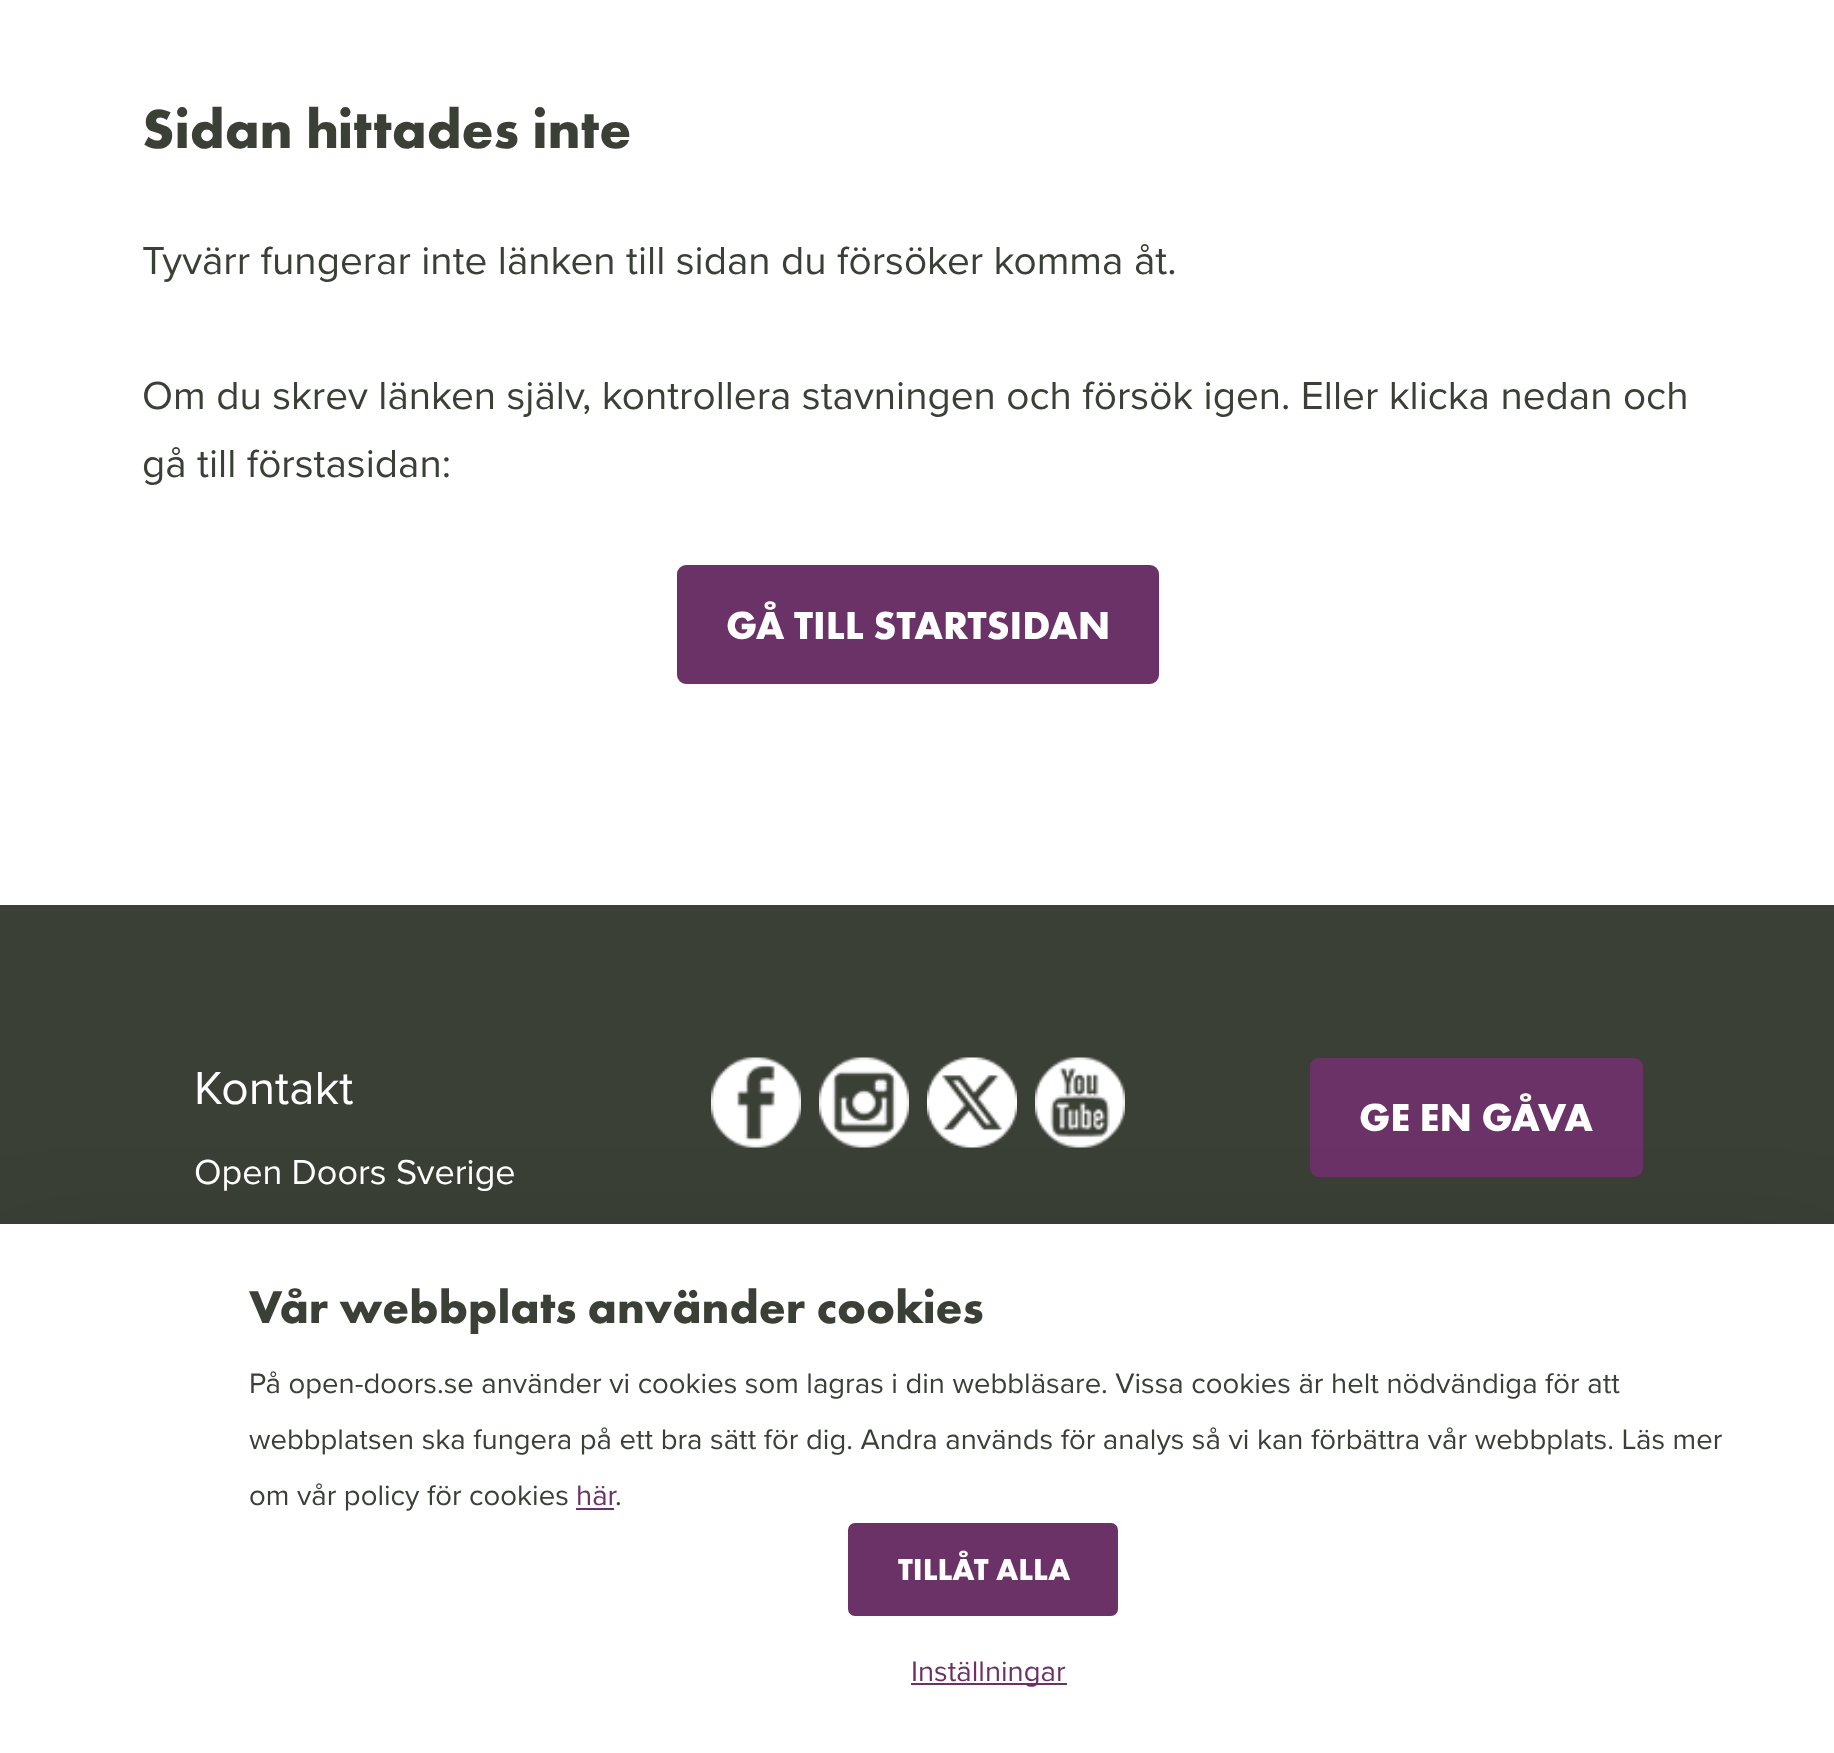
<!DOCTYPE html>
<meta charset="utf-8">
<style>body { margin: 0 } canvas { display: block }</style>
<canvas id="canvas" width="1834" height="1753"></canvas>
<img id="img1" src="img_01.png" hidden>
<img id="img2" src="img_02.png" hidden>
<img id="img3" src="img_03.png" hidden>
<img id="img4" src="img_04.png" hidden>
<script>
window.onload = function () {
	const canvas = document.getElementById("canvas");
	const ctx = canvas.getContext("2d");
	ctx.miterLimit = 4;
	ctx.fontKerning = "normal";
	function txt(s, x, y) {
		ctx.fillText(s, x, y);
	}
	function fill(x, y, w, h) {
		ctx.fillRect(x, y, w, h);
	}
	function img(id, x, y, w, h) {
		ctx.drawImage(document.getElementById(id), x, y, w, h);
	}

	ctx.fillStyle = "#FFFFFF";
	fill(0, 0, 1834, 1753);
	ctx.fillStyle = "#6B3267";
	ctx.beginPath();
	ctx.roundRect(679.5, 567.5, 477, 114, 6.5);
	ctx.fill();
	ctx.strokeStyle = "#6B3267";
	ctx.lineWidth = 5;
	ctx.stroke();
	ctx.fillStyle = "#3B4037";
	fill(0, 905, 1834, 319);
	img("img1", 711, 1057, 90, 91);
	img("img2", 819, 1057, 90, 91);
	img("img3", 927, 1057, 90, 91);
	img("img4", 1035, 1057, 90, 91);
	ctx.fillStyle = "#6B3267";
	ctx.beginPath();
	ctx.roundRect(1312.5, 1060.5, 328, 114, 6.5);
	ctx.fill();
	ctx.stroke();
	ctx.fillStyle = "rgba(0, 0, 0, 0.18)";
	ctx.filter = "blur(54px)";
	ctx.beginPath();
	ctx.rect(0, 1260, 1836, 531);
	ctx.fill();
	ctx.filter = "none";
	ctx.fillStyle = "#FFFFFF";
	fill(0, 1224, 1834, 529);
	ctx.fillStyle = "#6B3267";
	fill(576, 1508, 38, 2);
	ctx.beginPath();
	ctx.roundRect(850.5, 1525.5, 265, 88, 4.5);
	ctx.fill();
	ctx.stroke();
	fill(911, 1683, 156, 2);
	ctx.font = "bold 56.75px Futura PT";
	ctx.fillStyle = "#3B4037";
	txt("Sidan hittades inte", 142, 148);
	ctx.font = "40.5px Proxima Nova";
	txt("Tyvärr fungerar inte länken till sidan du försöker komma åt.", 142, 274);
	txt("Om du skrev länken själv, kontrollera stavningen och försök igen. Eller klicka nedan och", 142, 409);
	txt("gå till förstasidan:", 142, 477);
	ctx.font = "bold 40.5px Futura PT";
	ctx.fillStyle = "#FFFFFF";
	txt("GÅ TILL STARTSIDAN", 726, 639);
	ctx.font = "48px Proxima Nova";
	txt("Kontakt", 194, 1104);
	ctx.font = "36px Proxima Nova";
	txt("Open Doors Sverige", 194, 1184);
	ctx.font = "bold 40.5px Futura PT";
	txt("GE EN GÅVA", 1359, 1131);
	ctx.font = "bold 47.7px Futura PT";
	ctx.fillStyle = "#3B4037";
	txt("Vår webbplats använder cookies", 249, 1323);
	ctx.font = "29.25px Proxima Nova";
	txt("På open-doors.se använder vi cookies som lagras i din webbläsare. Vissa cookies är helt nödvändiga för att", 249, 1393);
	txt("webbplatsen ska fungera på ett bra sätt för dig. Andra används för analys så vi kan förbättra vår webbplats. Läs mer", 249, 1449);
	txt("om vår policy för cookies", 249, 1505);
	ctx.fillStyle = "#6B3267";
	txt("här", 576, 1505);
	ctx.fillStyle = "#3B4037";
	txt(".", 615, 1505);
	ctx.font = "bold 31.5px Futura PT";
	ctx.fillStyle = "#FFFFFF";
	txt("TILLÅT ALLA", 898, 1580);
	ctx.font = "29.25px Proxima Nova";
	ctx.fillStyle = "#6B3267";
	txt("Inställningar", 911, 1681);
};
</script>
